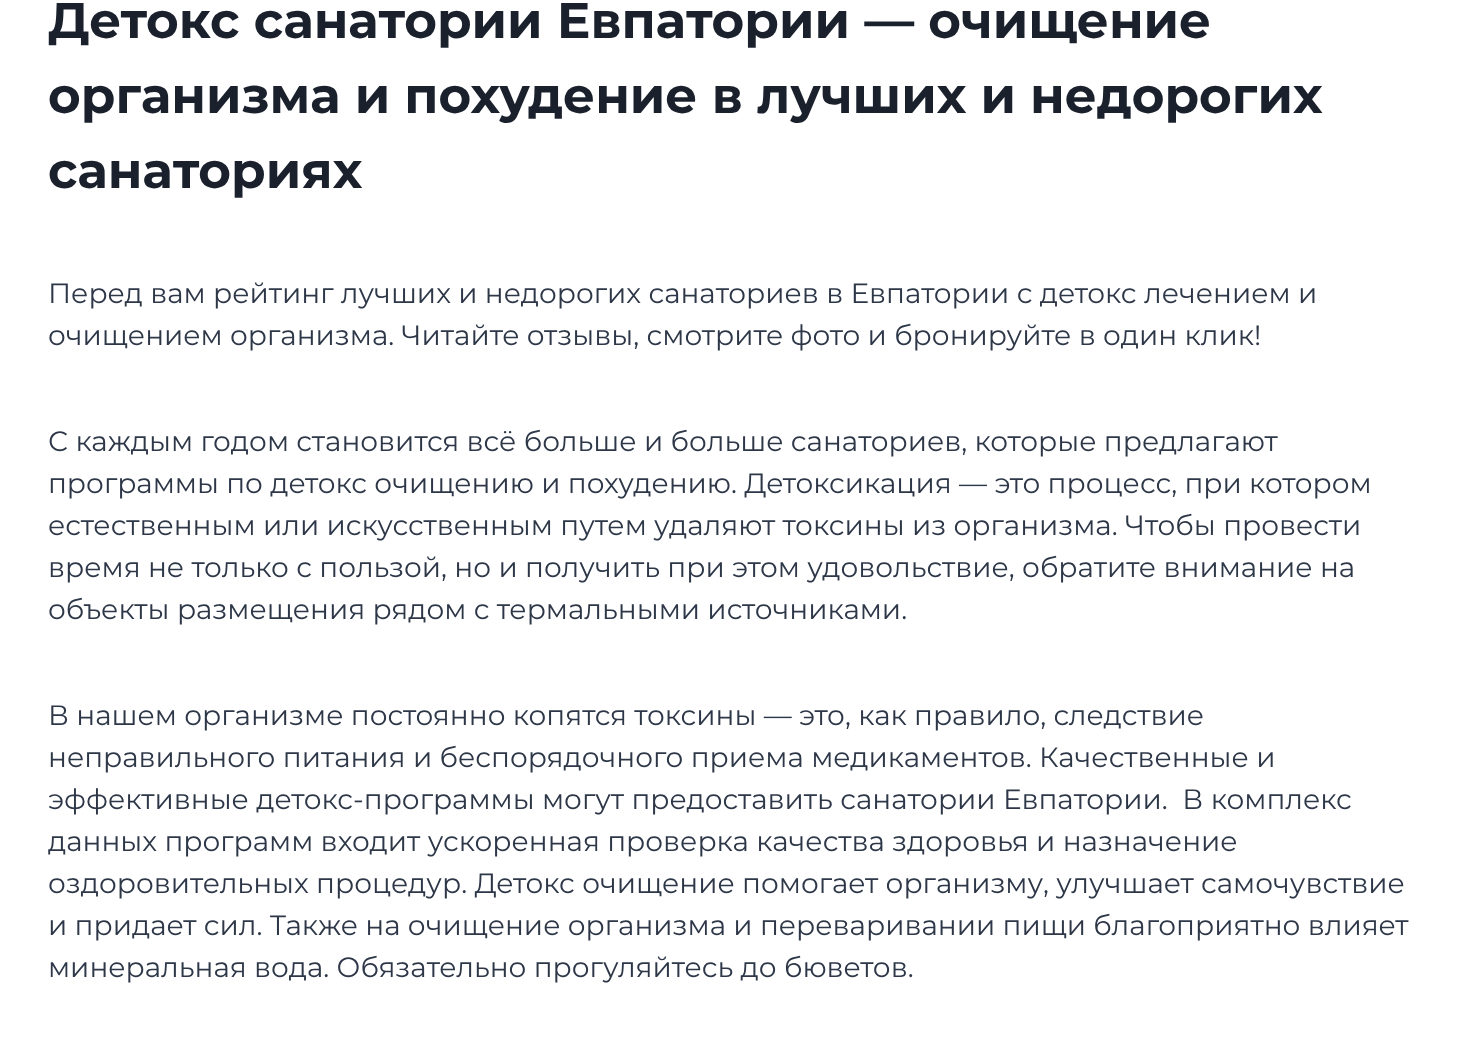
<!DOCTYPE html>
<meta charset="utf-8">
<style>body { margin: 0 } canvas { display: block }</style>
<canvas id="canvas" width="1477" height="1054"></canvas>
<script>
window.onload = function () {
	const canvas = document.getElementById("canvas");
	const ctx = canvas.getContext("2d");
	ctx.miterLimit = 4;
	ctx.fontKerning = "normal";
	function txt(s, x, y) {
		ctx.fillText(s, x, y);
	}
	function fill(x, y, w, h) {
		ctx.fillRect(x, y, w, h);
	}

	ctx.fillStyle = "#FFFFFF";
	fill(0, 0, 1477, 1054);
	ctx.font = "bold 50px Montserrat";
	ctx.fillStyle = "#1A202C";
	txt("Детокс санатории Евпатории — очищение", 48, 38);
	txt("организма и похудение в лучших и недорогих", 48, 113);
	txt("санаториях", 48, 188);
	ctx.font = "28px Montserrat";
	ctx.fillStyle = "#2D3748";
	txt("Перед вам рейтинг лучших и недорогих санаториев в Евпатории с детокс лечением и", 48, 303);
	txt("очищением организма. Читайте отзывы, смотрите фото и бронируйте в один клик!", 48, 345);
	txt("С каждым годом становится всё больше и больше санаториев, которые предлагают", 48, 451);
	txt("программы по детокс очищению и похудению. Детоксикация — это процесс, при котором", 48, 493);
	txt("естественным или искусственным путем удаляют токсины из организма. Чтобы провести", 48, 535);
	txt("время не только с пользой, но и получить при этом удовольствие, обратите внимание на", 48, 577);
	txt("объекты размещения рядом с термальными источниками.", 48, 619);
	txt("В нашем организме постоянно копятся токсины — это, как правило, следствие", 48, 725);
	txt("неправильного питания и беспорядочного приема медикаментов. Качественные и", 48, 767);
	txt("эффективные детокс-программы могут предоставить санатории Евпатории.  В комплекс", 48, 809);
	txt("данных программ входит ускоренная проверка качества здоровья и назначение", 48, 851);
	txt("оздоровительных процедур. Детокс очищение помогает организму, улучшает самочувствие", 48, 893);
	txt("и придает сил. Также на очищение организма и переваривании пищи благоприятно влияет", 48, 935);
	txt("минеральная вода. Обязательно прогуляйтесь до бюветов.", 48, 977);
};
</script>
